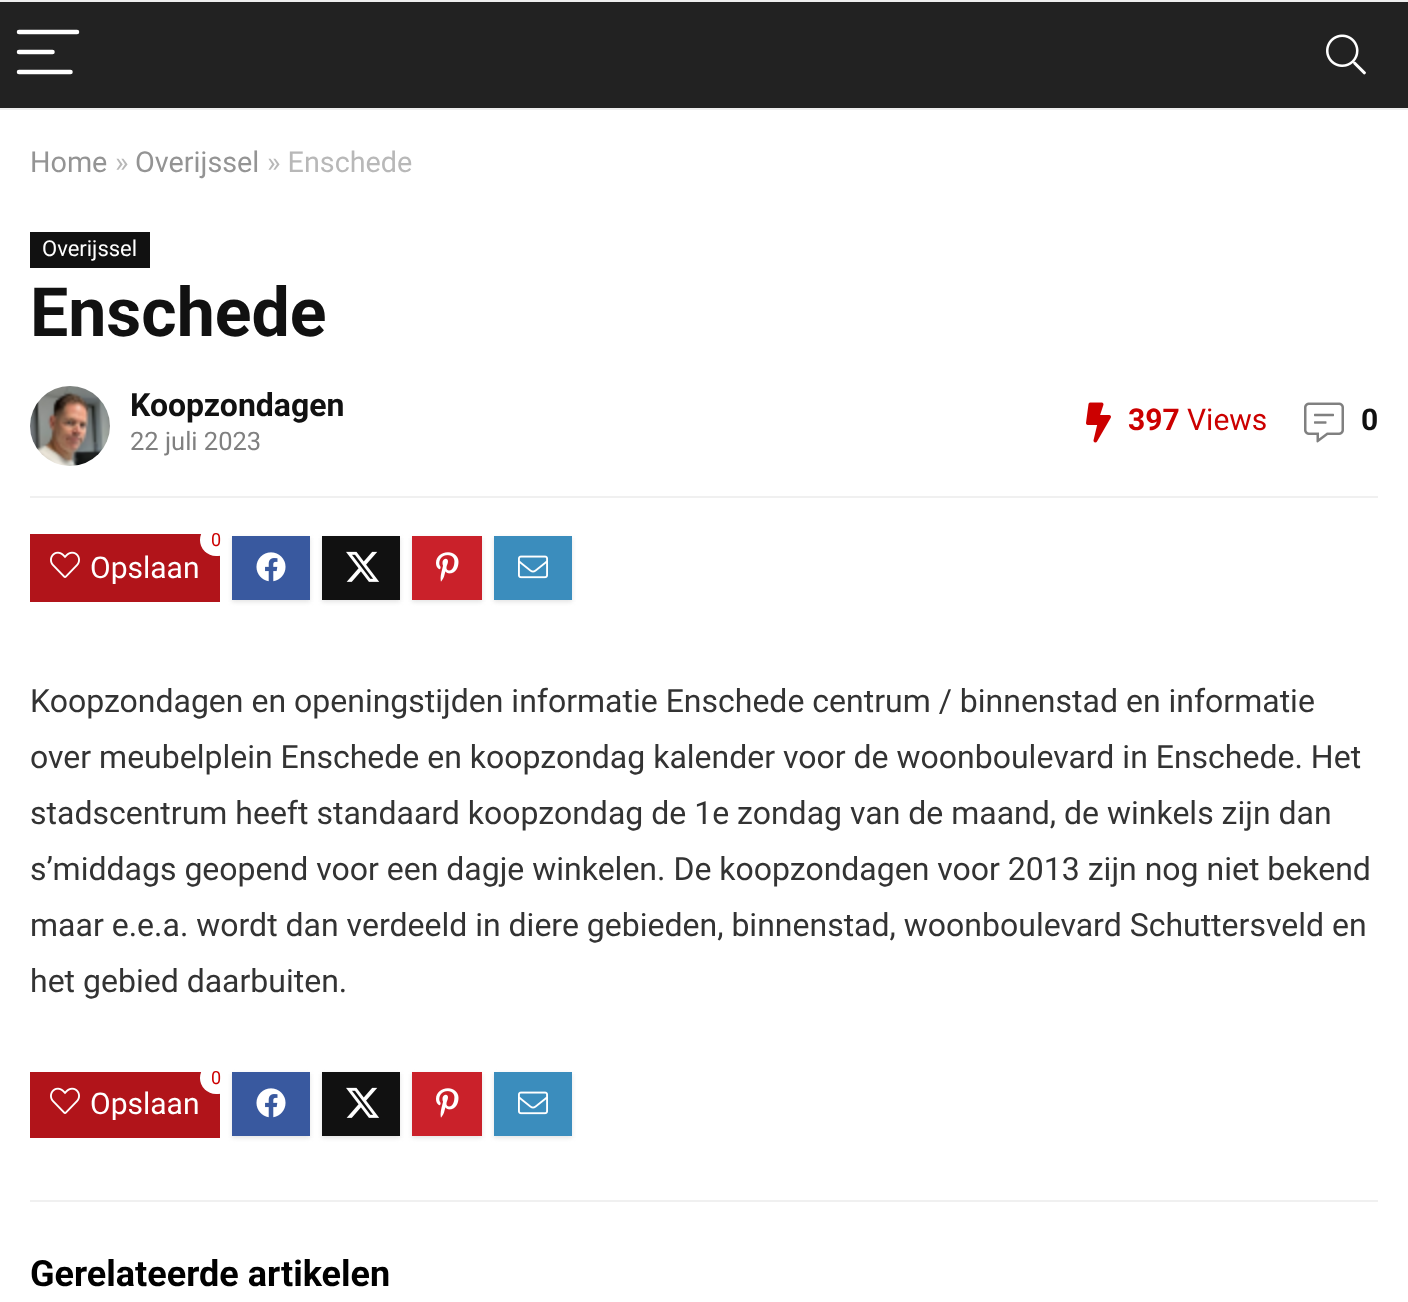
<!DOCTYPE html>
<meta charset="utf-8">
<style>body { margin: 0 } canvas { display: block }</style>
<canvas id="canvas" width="1408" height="1302"></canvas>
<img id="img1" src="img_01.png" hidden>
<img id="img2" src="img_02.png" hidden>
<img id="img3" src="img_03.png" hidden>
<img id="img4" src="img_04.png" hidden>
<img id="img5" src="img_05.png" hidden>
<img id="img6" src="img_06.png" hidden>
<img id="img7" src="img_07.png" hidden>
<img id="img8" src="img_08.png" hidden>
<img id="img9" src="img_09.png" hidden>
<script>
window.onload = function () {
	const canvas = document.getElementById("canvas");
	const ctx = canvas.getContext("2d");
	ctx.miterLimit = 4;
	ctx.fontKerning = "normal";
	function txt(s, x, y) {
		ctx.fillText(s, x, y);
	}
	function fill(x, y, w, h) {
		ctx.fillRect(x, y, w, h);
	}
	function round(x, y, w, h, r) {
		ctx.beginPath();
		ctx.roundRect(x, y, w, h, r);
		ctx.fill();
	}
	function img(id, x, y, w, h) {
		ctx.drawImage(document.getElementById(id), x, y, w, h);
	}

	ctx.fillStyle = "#FFFFFF";
	fill(0, 0, 1408, 1302);
	ctx.fillStyle = "#222222";
	fill(0, 2, 1408, 106);
	ctx.fillStyle = "#EEEEEE";
	fill(0, 0, 1408, 2);
	fill(0, 108, 1408, 2);
	ctx.beginPath();
	ctx.moveTo(19, 32);
	ctx.lineTo(77, 32);
	ctx.strokeStyle = "#FFFFFF";
	ctx.lineWidth = 4.5;
	ctx.lineCap = "round";
	ctx.stroke();
	ctx.beginPath();
	ctx.moveTo(19, 52);
	ctx.lineTo(52.5, 52);
	ctx.moveTo(19, 72);
	ctx.lineTo(70.5, 72);
	ctx.stroke();
	img("img1", 1326, 34, 40, 41);
	ctx.fillStyle = "#111111";
	fill(30, 232, 120, 36);
	ctx.fillStyle = "#F0F0F0";
	fill(30, 496, 1348, 2);
	img("img2", 30, 386, 80, 80);
	img("img3", 1086, 402, 25, 41);
	img("img4", 1304, 402, 40, 41);
	ctx.fillStyle = "#B1141A";
	fill(30, 534, 190, 68);
	ctx.save();
	ctx.beginPath();
	ctx.rect(30, 528, 1348, 86);
	ctx.clip();
	ctx.fillStyle = "#FFFFFF";
	round(200, 524, 34, 32, 16);
	ctx.restore();
	img("img5", 50, 551, 30, 27);
	ctx.fillStyle = "#E4E4E4";
	ctx.filter = "blur(2px)";
	ctx.beginPath();
	ctx.rect(232, 538, 78, 64);
	ctx.fill();
	ctx.filter = "none";
	ctx.fillStyle = "#39599F";
	fill(232, 536, 78, 64);
	img("img6", 256, 552, 30, 30);
	ctx.fillStyle = "#E4E4E4";
	ctx.filter = "blur(2px)";
	ctx.beginPath();
	ctx.rect(322, 538, 78, 64);
	ctx.fill();
	ctx.filter = "none";
	ctx.fillStyle = "#111111";
	fill(322, 536, 78, 64);
	img("img7", 346, 551, 34, 31);
	ctx.fillStyle = "#E4E4E4";
	ctx.filter = "blur(2px)";
	ctx.beginPath();
	ctx.rect(412, 538, 70, 64);
	ctx.fill();
	ctx.filter = "none";
	ctx.fillStyle = "#CA212A";
	fill(412, 536, 70, 64);
	img("img8", 436, 552, 23, 30);
	ctx.fillStyle = "#E4E4E4";
	ctx.filter = "blur(2px)";
	ctx.beginPath();
	ctx.rect(494, 538, 78, 64);
	ctx.fill();
	ctx.filter = "none";
	ctx.fillStyle = "#3B8DBD";
	fill(494, 536, 78, 64);
	img("img9", 518, 555, 30, 24);
	ctx.fillStyle = "#B1141A";
	fill(30, 1072, 190, 66);
	ctx.fillStyle = "#FFFFFF";
	round(200, 1062, 34, 32, 16);
	img("img5", 50, 1087, 30, 27);
	ctx.fillStyle = "#E4E4E4";
	ctx.filter = "blur(2px)";
	ctx.beginPath();
	ctx.rect(232, 1074, 78, 64);
	ctx.fill();
	ctx.filter = "none";
	ctx.fillStyle = "#39599F";
	fill(232, 1072, 78, 64);
	img("img6", 256, 1088, 30, 30);
	ctx.fillStyle = "#E4E4E4";
	ctx.filter = "blur(2px)";
	ctx.beginPath();
	ctx.rect(322, 1074, 78, 64);
	ctx.fill();
	ctx.filter = "none";
	ctx.fillStyle = "#111111";
	fill(322, 1072, 78, 64);
	img("img7", 346, 1087, 34, 31);
	ctx.fillStyle = "#E4E4E4";
	ctx.filter = "blur(2px)";
	ctx.beginPath();
	ctx.rect(412, 1074, 70, 64);
	ctx.fill();
	ctx.filter = "none";
	ctx.fillStyle = "#CA212A";
	fill(412, 1072, 70, 64);
	img("img8", 436, 1088, 23, 30);
	ctx.fillStyle = "#E4E4E4";
	ctx.filter = "blur(2px)";
	ctx.beginPath();
	ctx.rect(494, 1074, 78, 64);
	ctx.fill();
	ctx.filter = "none";
	ctx.fillStyle = "#3B8DBD";
	fill(494, 1072, 78, 64);
	img("img9", 518, 1091, 30, 24);
	ctx.fillStyle = "#F0F0F0";
	fill(30, 1200, 1348, 2);
	ctx.font = "28.75px Roboto";
	ctx.fillStyle = "#949494";
	txt("Home", 30, 172);
	ctx.fillStyle = "#B8B8B8";
	txt("»", 115, 172);
	ctx.fillStyle = "#949494";
	txt("Overijssel", 135, 172);
	ctx.fillStyle = "#B8B8B8";
	txt("» Enschede", 267, 172);
	ctx.font = "22px Roboto";
	ctx.fillStyle = "#FFFFFF";
	txt("Overijssel", 42, 256);
	ctx.font = "bold 68px Roboto";
	ctx.fillStyle = "#111111";
	txt("Enschede", 30, 336);
	ctx.font = "bold 32px Roboto";
	txt("Koopzondagen", 130, 416);
	ctx.font = "25.5px Roboto";
	ctx.fillStyle = "#808080";
	txt("22 juli 2023", 130, 450);
	ctx.font = "bold 30px Roboto";
	ctx.fillStyle = "#CC0000";
	txt("397", 1128, 430);
	ctx.font = "30px Roboto";
	txt("Views", 1187, 430);
	ctx.font = "bold 30px Roboto";
	ctx.fillStyle = "#111111";
	txt("0", 1361, 430);
	ctx.font = "18px Roboto";
	ctx.fillStyle = "#CC0000";
	txt("0", 211, 546);
	ctx.font = "30px Roboto";
	ctx.fillStyle = "#FFFFFF";
	txt("Opslaan", 90, 578);
	ctx.font = "32px Roboto";
	ctx.fillStyle = "#333333";
	txt("Koopzondagen en openingstijden informatie Enschede centrum / binnenstad en informatie", 30, 712);
	txt("over meubelplein Enschede en koopzondag kalender voor de woonboulevard in Enschede. Het", 30, 768);
	txt("stadscentrum heeft standaard koopzondag de 1e zondag van de maand, de winkels zijn dan", 30, 824);
	txt("s’middags geopend voor een dagje winkelen. De koopzondagen voor 2013 zijn nog niet bekend", 30, 880);
	txt("maar e.e.a. wordt dan verdeeld in diere gebieden, binnenstad, woonboulevard Schuttersveld en", 30, 936);
	txt("het gebied daarbuiten.", 30, 992);
	ctx.font = "18px Roboto";
	ctx.fillStyle = "#CC0000";
	txt("0", 211, 1084);
	ctx.font = "30px Roboto";
	ctx.fillStyle = "#FFFFFF";
	txt("Opslaan", 90, 1114);
	ctx.font = "bold 36px Roboto";
	ctx.fillStyle = "#000000";
	txt("Gerelateerde artikelen", 30, 1286);
};
</script>
